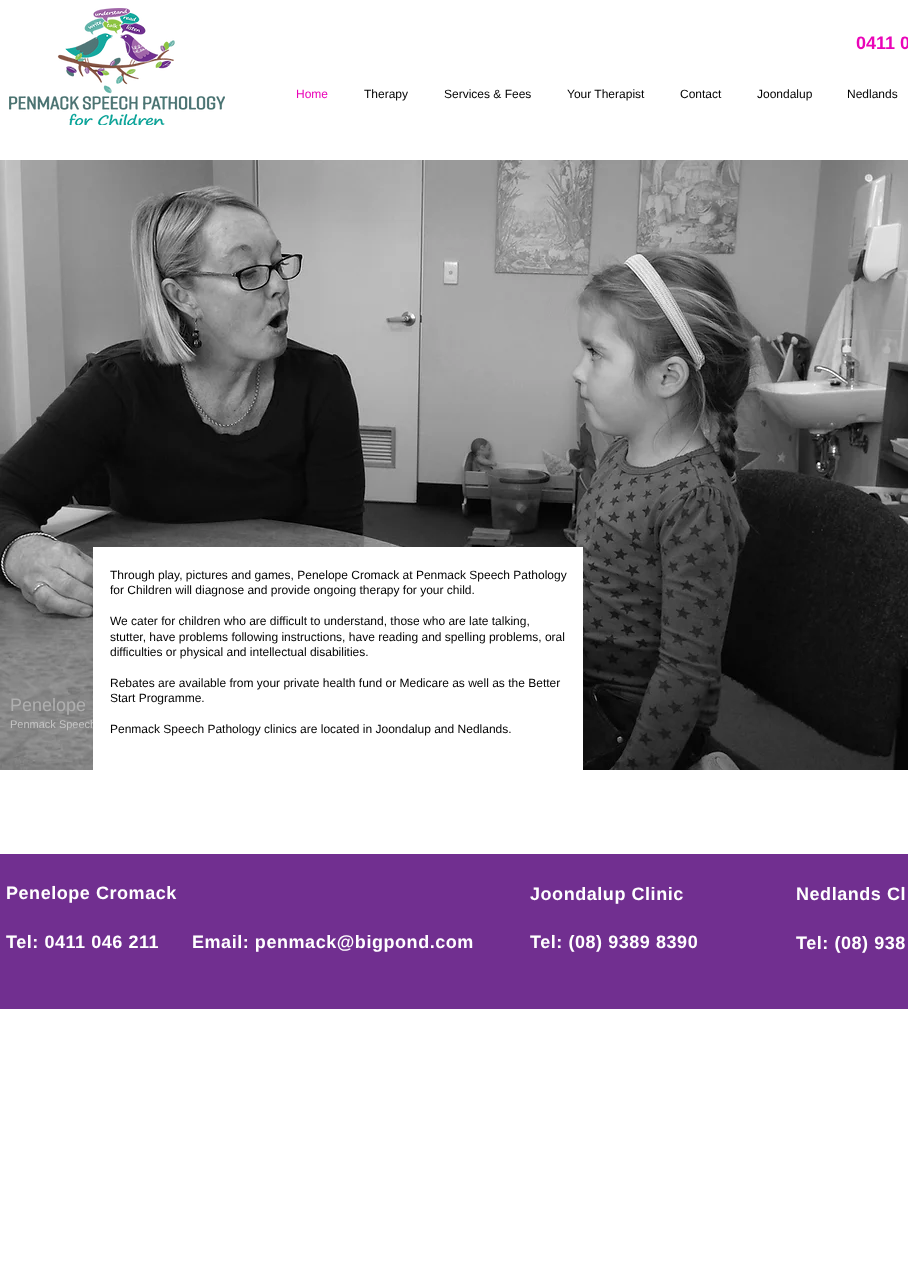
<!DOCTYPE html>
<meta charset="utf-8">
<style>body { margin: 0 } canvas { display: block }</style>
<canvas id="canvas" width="908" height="1281"></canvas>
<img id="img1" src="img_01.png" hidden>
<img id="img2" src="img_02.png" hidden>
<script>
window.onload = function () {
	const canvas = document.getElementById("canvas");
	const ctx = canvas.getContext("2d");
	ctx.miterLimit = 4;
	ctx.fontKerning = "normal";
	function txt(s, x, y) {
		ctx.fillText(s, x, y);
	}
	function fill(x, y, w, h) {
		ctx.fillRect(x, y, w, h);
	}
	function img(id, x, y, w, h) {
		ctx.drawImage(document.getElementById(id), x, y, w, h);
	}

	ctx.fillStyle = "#FFFFFF";
	fill(0, 0, 908, 1281);
	img("img1", 9, 8, 216, 117);
	img("img2", 0, 160, 908, 610);
	ctx.fillStyle = "#712F90";
	fill(0, 854, 908, 155);
	ctx.font = "bold 18px Liberation Sans";
	ctx.fillStyle = "#EA04B8";
	txt("0411 0", 856, 49);
	ctx.font = "12px Liberation Sans";
	txt("Home", 296, 98);
	ctx.fillStyle = "#000000";
	txt("Therapy", 364, 98);
	txt("Services & Fees", 444, 98);
	txt("Your Therapist", 567, 98);
	txt("Contact", 680, 98);
	txt("Joondalup", 757, 98);
	txt("Nedlands", 847, 98);
	ctx.font = "18px Liberation Sans";
	ctx.fillStyle = "#AFAFAF";
	txt("Penelope", 10, 711);
	ctx.font = "11px Liberation Sans";
	ctx.fillStyle = "#C5C5C5";
	txt("Penmack Speech", 10, 728);
	ctx.fillStyle = "#FFFFFF";
	fill(93, 547, 490, 223);
	ctx.font = "12px Liberation Sans";
	ctx.fillStyle = "#000000";
	txt("Through play, pictures and games, Penelope Cromack at Penmack Speech Pathology", 110, 579);
	txt("for Children will diagnose and provide ongoing therapy for your child.", 110, 594);
	txt("We cater for children who are difficult to understand, those who are late talking,", 110, 625);
	txt("stutter, have problems following instructions, have reading and spelling problems, oral", 110, 641);
	txt("difficulties or physical and intellectual disabilities.", 110, 656);
	txt("Rebates are available from your private health fund or Medicare as well as the Better", 110, 687);
	txt("Start Programme.", 110, 702);
	txt("Penmack Speech Pathology clinics are located in Joondalup and Nedlands.", 110, 733);
	ctx.letterSpacing = "0.55px";
	ctx.font = "bold 18px Liberation Sans";
	ctx.fillStyle = "#FFFFFF";
	txt("Penelope Cromack", 6, 899);
	txt("Tel: 0411 046 211", 6, 948);
	txt("Email: penmack@bigpond.com", 192, 948);
	txt("Joondalup Clinic", 530, 900);
	txt("Tel: (08) 9389 8390", 530, 948);
	txt("Nedlands Cl", 796, 900);
	txt("Tel: (08) 938", 796, 949);
};
</script>
